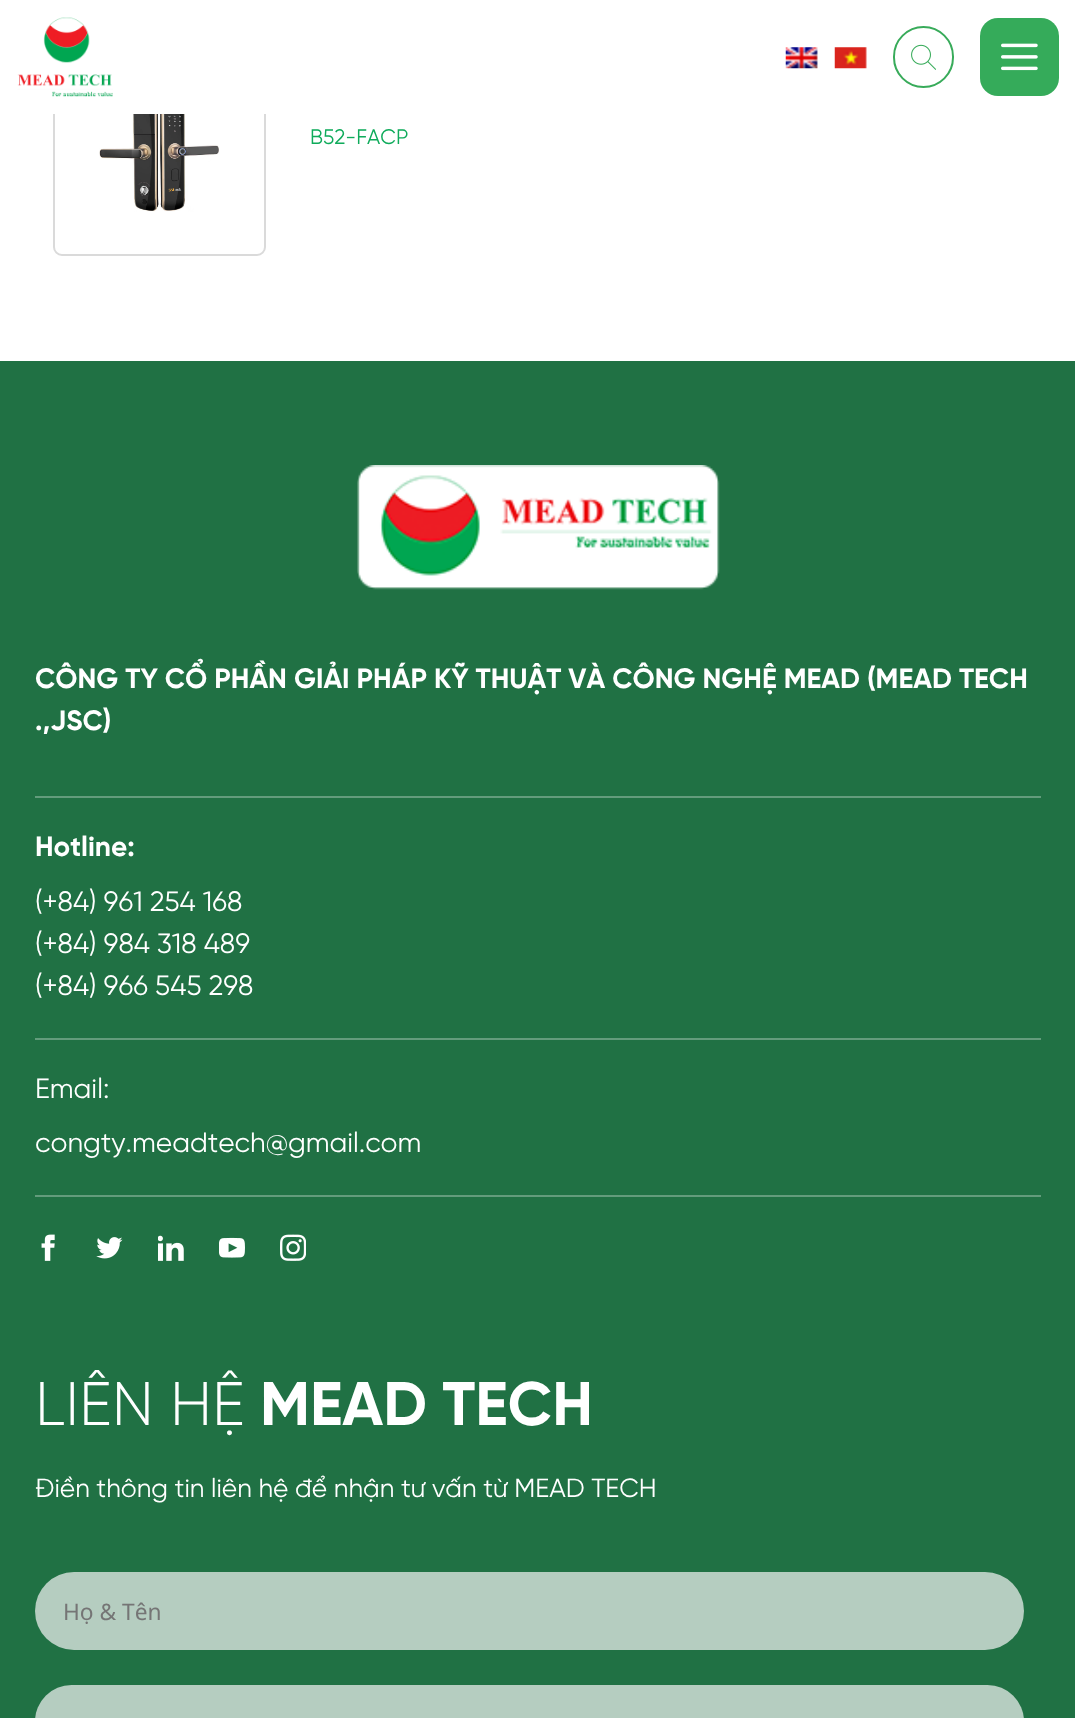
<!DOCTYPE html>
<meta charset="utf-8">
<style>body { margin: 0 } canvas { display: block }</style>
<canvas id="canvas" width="1075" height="1718"></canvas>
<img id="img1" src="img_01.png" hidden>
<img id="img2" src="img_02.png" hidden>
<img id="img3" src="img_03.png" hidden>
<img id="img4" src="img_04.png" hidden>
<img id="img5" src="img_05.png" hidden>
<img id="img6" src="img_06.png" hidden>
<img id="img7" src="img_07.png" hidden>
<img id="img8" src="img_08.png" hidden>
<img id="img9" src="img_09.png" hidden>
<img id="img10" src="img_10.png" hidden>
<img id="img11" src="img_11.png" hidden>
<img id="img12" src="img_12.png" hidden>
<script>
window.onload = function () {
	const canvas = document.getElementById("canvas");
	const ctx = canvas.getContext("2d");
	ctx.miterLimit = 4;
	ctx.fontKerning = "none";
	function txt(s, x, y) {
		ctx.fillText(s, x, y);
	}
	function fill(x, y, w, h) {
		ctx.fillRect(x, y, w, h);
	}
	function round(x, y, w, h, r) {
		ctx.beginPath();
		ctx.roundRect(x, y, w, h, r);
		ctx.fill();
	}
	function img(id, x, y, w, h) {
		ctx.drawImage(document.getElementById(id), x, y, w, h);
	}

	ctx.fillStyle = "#FFFFFF";
	fill(0, 0, 1075, 1718);
	ctx.beginPath();
	ctx.roundRect(54, 43, 211, 212, 8);
	ctx.strokeStyle = "#DADADA";
	ctx.lineWidth = 2;
	ctx.stroke();
	fill(53, 42, 213, 72);
	img("img1", 17, 17, 96, 80);
	img("img2", 785, 47, 33, 22);
	img("img3", 834, 47, 33, 22);
	ctx.beginPath();
	ctx.roundRect(894, 27, 59, 60, 29.5);
	ctx.strokeStyle = "#38AB5A";
	ctx.stroke();
	img("img4", 911, 44, 25, 26);
	ctx.fillStyle = "#35AB5A";
	round(980, 18, 79, 78, 18);
	img("img5", 1001, 43, 37, 28);
	img("img6", 99, 114, 131, 98);
	ctx.fillStyle = "#207144";
	fill(0, 361, 1075, 1357);
	img("img7", 357, 465, 363, 125);
	ctx.fillStyle = "#639C7C";
	fill(35, 796, 1006, 2);
	fill(35, 1038, 1006, 2);
	fill(35, 1195, 1006, 2);
	img("img8", 41, 1234, 14, 27);
	img("img9", 96, 1237, 27, 22);
	img("img10", 158, 1235, 26, 26);
	img("img11", 219, 1237, 26, 21);
	img("img12", 280, 1234, 26, 27);
	ctx.fillStyle = "#B5CDC0";
	round(35, 1572, 989, 78, 39);
	round(35, 1685, 989, 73, 39.5);
	ctx.font = "21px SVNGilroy";
	ctx.fillStyle = "#0FAB5B";
	txt("B52-FACP", 310, 144);
	ctx.font = "bold 28px SVNGilroy";
	ctx.fillStyle = "#FFFFFF";
	txt("CÔNG TY CỔ PHẦN GIẢI PHÁP KỸ THUẬT VÀ CÔNG NGHỆ MEAD (MEAD TECH", 35, 688);
	txt(".,JSC)", 35, 730);
	txt("Hotline:", 35, 856);
	ctx.font = "28px SVNGilroy";
	txt("(+84) 961 254 168", 35, 911);
	txt("(+84) 984 318 489", 35, 953);
	txt("(+84) 966 545 298", 35, 995);
	txt("Email:", 35, 1098);
	txt("congty.meadtech@gmail.com", 35, 1152);
	ctx.font = "300 61.25px SVNGilroy";
	txt("LIÊN HỆ", 35, 1425);
	ctx.font = "bold 61.25px SVNGilroy";
	txt("MEAD TECH", 260, 1425);
	ctx.font = "26.25px SVNGilroy";
	txt("Điền thông tin liên hệ để nhận tư vấn từ MEAD TECH", 35, 1497);
	ctx.font = "22.75px Noto Sans";
	ctx.fillStyle = "#757575";
	txt("Họ & Tên", 63, 1620);
};
</script>
